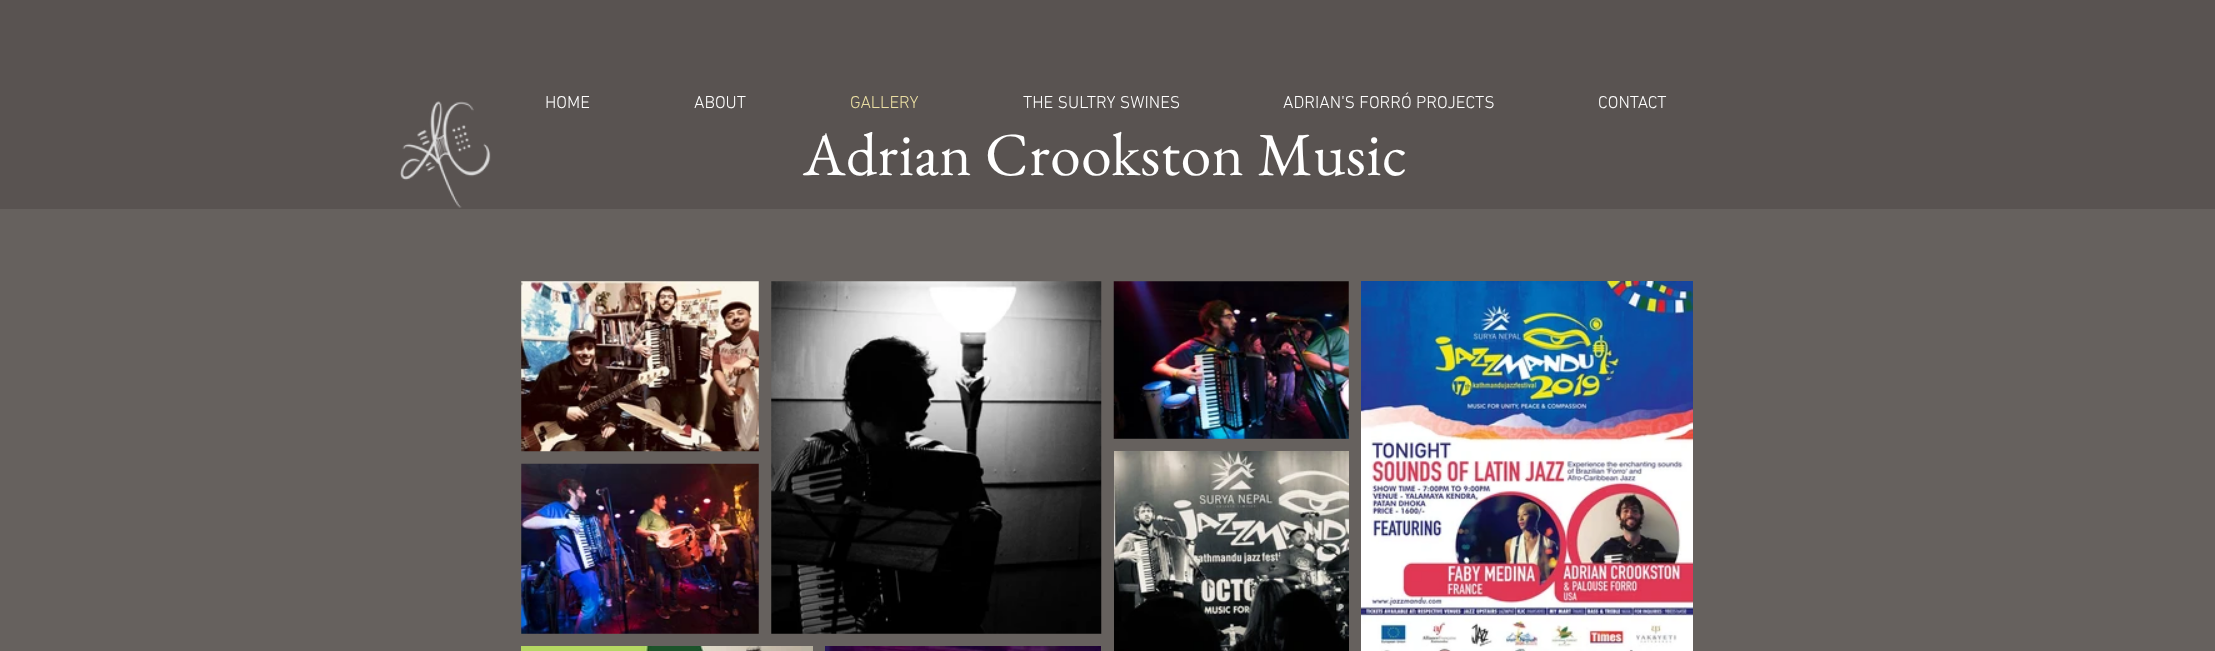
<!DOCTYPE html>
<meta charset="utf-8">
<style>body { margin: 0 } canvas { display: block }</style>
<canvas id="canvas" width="2215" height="651"></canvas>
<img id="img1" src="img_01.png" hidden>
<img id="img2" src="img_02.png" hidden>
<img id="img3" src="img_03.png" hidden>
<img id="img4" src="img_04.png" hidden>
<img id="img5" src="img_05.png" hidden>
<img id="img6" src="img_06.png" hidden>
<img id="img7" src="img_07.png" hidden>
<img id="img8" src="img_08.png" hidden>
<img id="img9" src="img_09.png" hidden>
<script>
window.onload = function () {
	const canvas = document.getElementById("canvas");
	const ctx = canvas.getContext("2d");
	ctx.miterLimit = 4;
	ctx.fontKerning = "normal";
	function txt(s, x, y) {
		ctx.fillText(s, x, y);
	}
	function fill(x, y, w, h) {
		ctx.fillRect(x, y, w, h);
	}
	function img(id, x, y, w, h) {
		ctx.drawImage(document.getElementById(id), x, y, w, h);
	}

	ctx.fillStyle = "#66615E";
	fill(0, 0, 2215, 651);
	ctx.fillStyle = "#595351";
	fill(0, 0, 2215, 209);
	img("img1", 400, 101, 91, 107);
	img("img2", 521, 281, 238, 171);
	img("img3", 771, 281, 331, 353);
	img("img4", 1113, 281, 236, 158);
	img("img5", 1361, 281, 332, 370);
	img("img6", 521, 463, 238, 171);
	img("img7", 1114, 451, 235, 200);
	img("img8", 521, 646, 292, 5);
	img("img9", 825, 646, 276, 5);
	ctx.font = "300 17.5px 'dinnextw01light'";
	ctx.fillStyle = "#FFFFFF";
	txt("HOME", 545, 108);
	txt("ABOUT", 694, 108);
	ctx.fillStyle = "#EBDFA3";
	txt("GALLERY", 850, 108);
	ctx.fillStyle = "#FFFFFF";
	txt("THE SULTRY SWINES", 1023, 108);
	txt("ADRIAN'S FORRÓ PROJECTS", 1283, 108);
	txt("CONTACT", 1598, 108);
	ctx.letterSpacing = "0.6px";
	ctx.font = "61.25px EB Garamond";
	txt("Adrian Crookston Music", 803, 175);
};
</script>
